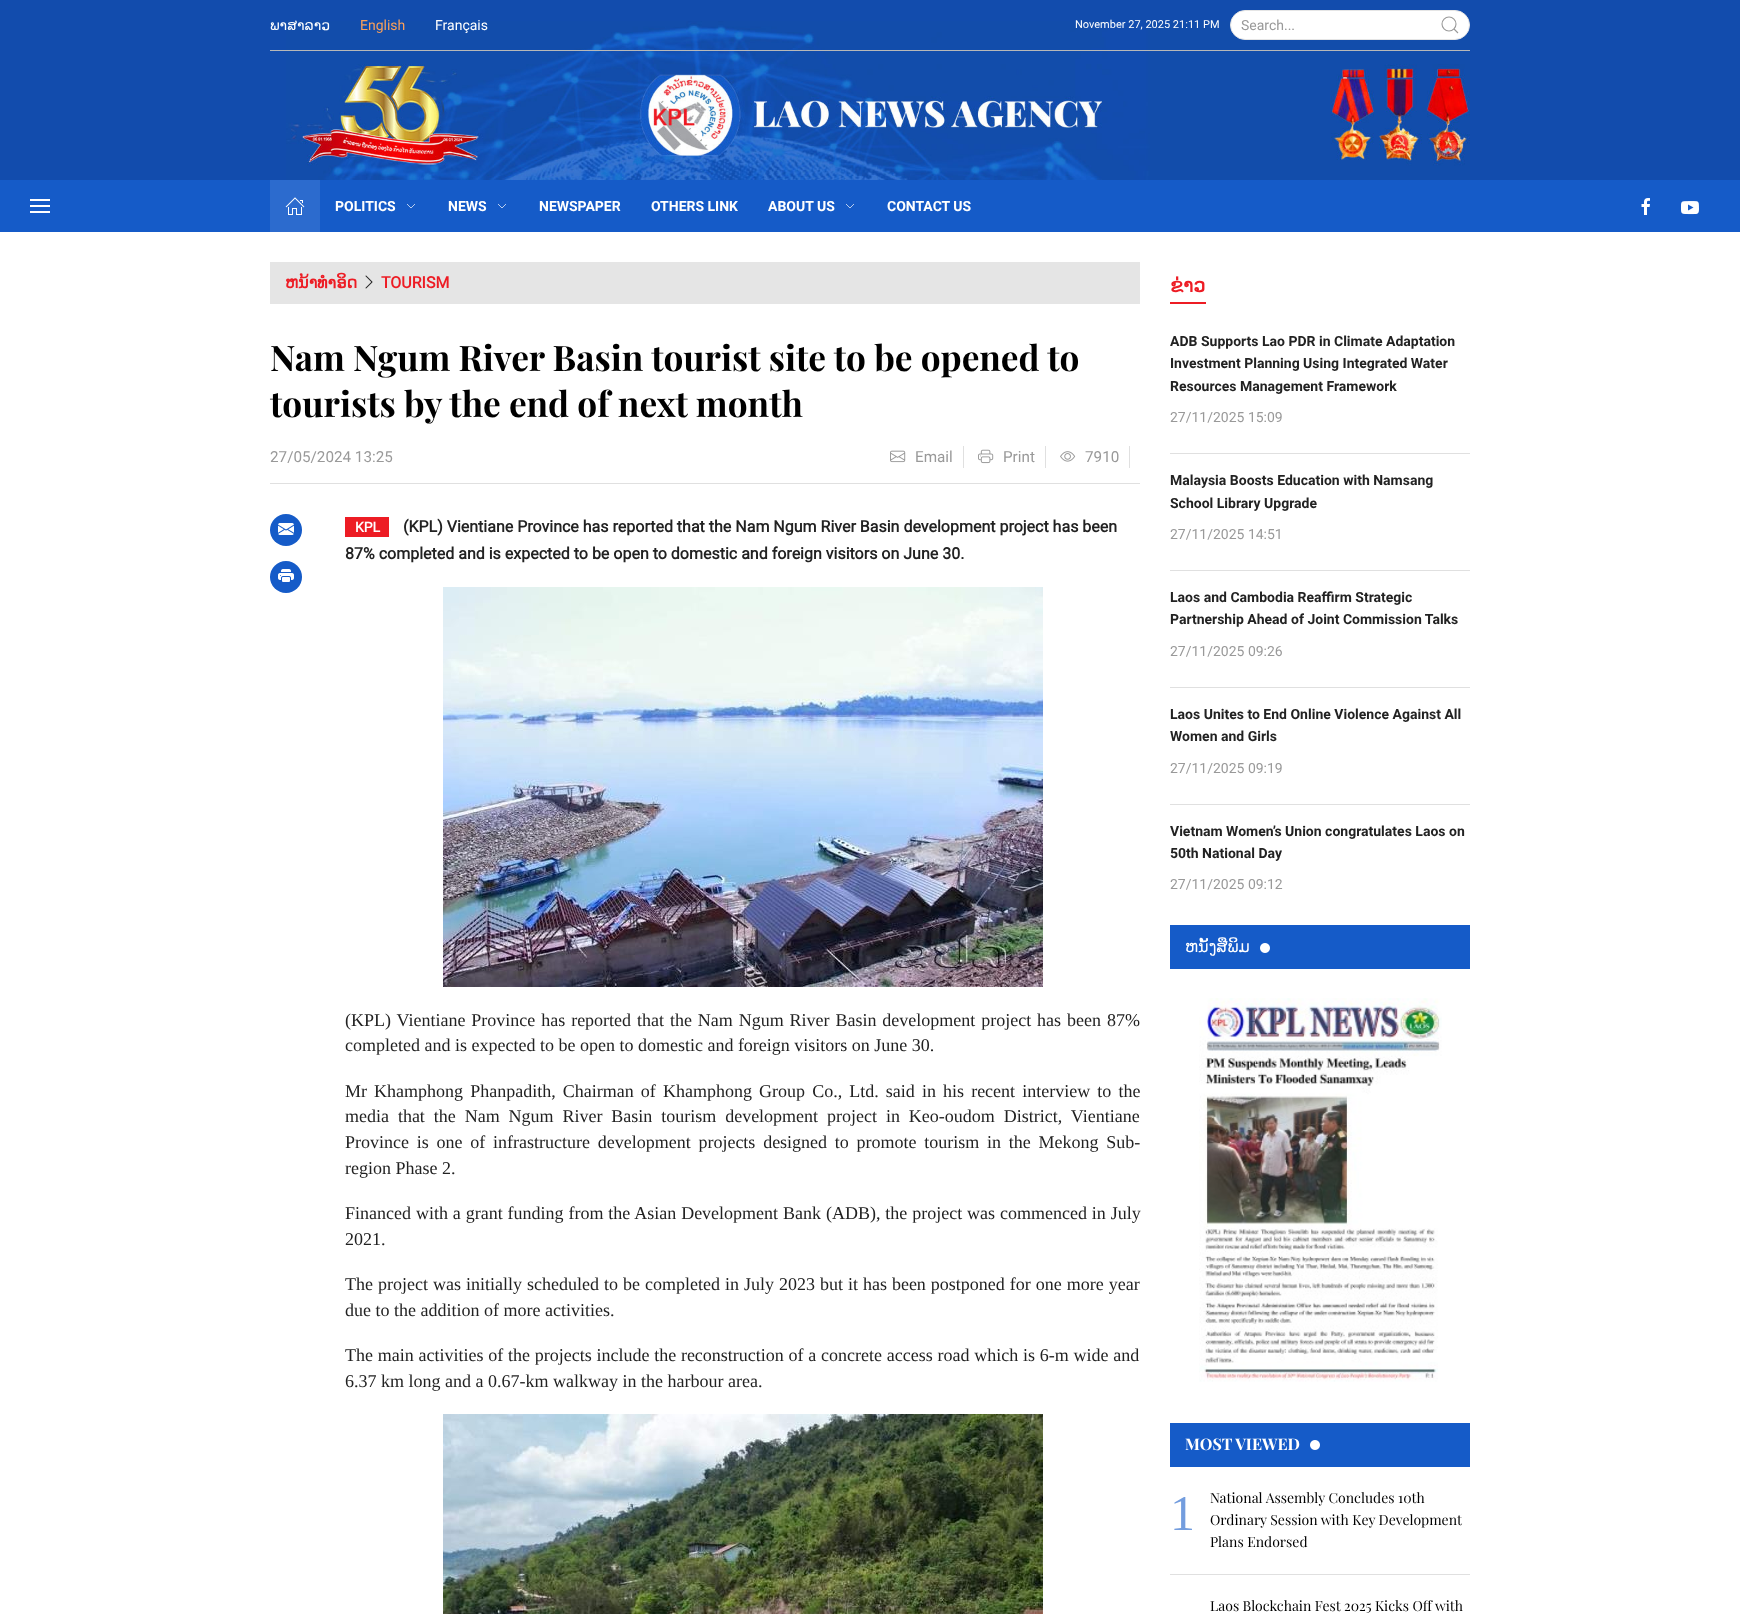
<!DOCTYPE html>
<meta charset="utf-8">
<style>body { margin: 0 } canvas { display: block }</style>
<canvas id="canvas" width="1740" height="1614"></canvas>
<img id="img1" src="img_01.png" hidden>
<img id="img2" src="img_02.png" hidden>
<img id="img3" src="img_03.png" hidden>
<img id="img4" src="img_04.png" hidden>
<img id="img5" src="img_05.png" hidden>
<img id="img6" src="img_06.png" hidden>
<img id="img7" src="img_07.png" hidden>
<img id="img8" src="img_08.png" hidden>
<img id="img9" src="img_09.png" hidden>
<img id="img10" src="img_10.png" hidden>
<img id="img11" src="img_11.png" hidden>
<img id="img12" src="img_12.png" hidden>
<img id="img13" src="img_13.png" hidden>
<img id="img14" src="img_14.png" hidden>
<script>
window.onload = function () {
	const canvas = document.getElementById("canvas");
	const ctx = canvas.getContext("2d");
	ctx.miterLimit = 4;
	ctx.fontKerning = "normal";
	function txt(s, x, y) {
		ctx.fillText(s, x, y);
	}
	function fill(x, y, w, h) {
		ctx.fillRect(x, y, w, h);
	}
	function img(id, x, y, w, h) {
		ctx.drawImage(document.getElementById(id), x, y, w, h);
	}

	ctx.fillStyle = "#FFFFFF";
	fill(0, 0, 1740, 1614);
	ctx.fillStyle = "#124CAD";
	fill(0, 0, 1740, 180);
	img("img1", 286, 21, 1184, 159);
	ctx.fillStyle = "#B8B8B8";
	fill(270, 50, 1200, 1);
	ctx.fillStyle = "#FFFFFF";
	ctx.beginPath();
	ctx.roundRect(1230.5, 10.5, 239, 29, 14.5);
	ctx.fill();
	ctx.strokeStyle = "#E5E5E5";
	ctx.stroke();
	ctx.beginPath();
	ctx.arc(1449, 24, 7, 0, Math.PI * 2);
	ctx.strokeStyle = "#999999";
	ctx.lineWidth = 1.1;
	ctx.stroke();
	ctx.beginPath();
	ctx.moveTo(1454, 29);
	ctx.lineTo(1458, 33);
	ctx.closePath();
	ctx.stroke();
	ctx.fillStyle = "#155BC8";
	fill(0, 180, 1740, 52);
	ctx.fillStyle = "#FFFFFF";
	fill(30, 199, 20, 2);
	fill(30, 205, 20, 2);
	fill(30, 211, 20, 2);
	ctx.fillStyle = "#2C6BCE";
	fill(270, 180, 50, 52);
	img("img2", 285, 197, 20, 18);
	ctx.beginPath();
	ctx.moveTo(415, 204);
	ctx.lineTo(411, 208);
	ctx.lineTo(407, 204);
	ctx.strokeStyle = "#FFFFFF";
	ctx.lineWidth = 0.7;
	ctx.stroke();
	ctx.beginPath();
	ctx.moveTo(506, 204);
	ctx.lineTo(502, 208);
	ctx.lineTo(498, 204);
	ctx.stroke();
	ctx.beginPath();
	ctx.moveTo(854, 204);
	ctx.lineTo(850, 208);
	ctx.lineTo(846, 204);
	ctx.stroke();
	img("img3", 1641, 198, 9, 17);
	img("img4", 1681, 201, 18, 14);
	ctx.fillStyle = "#E5E5E5";
	fill(270, 262, 870, 42);
	img("img5", 365, 275, 8, 14);
	ctx.fillStyle = "#E0E0E0";
	fill(270, 483, 870, 1);
	fill(963, 446, 1, 22);
	img("img6", 890, 450, 16, 13);
	fill(1045, 446, 1, 22);
	img("img7", 978, 449, 16, 15);
	fill(1129, 446, 1, 22);
	img("img8", 1060, 451, 16, 11);
	ctx.fillStyle = "#155BC8";
	ctx.beginPath();
	ctx.arc(286, 530, 16, 0, Math.PI * 2);
	ctx.fill();
	img("img9", 278, 523, 16, 12);
	ctx.beginPath();
	ctx.arc(286, 577, 16, 0, Math.PI * 2);
	ctx.fill();
	img("img10", 278, 569, 16, 13);
	ctx.fillStyle = "#ED1C24";
	fill(345, 517, 44, 20);
	img("img11", 443, 587, 600, 400);
	img("img12", 443, 1414, 600, 200);
	fill(1170, 302, 36, 2);
	ctx.fillStyle = "#E0E0E0";
	fill(1170, 453, 300, 1);
	fill(1170, 570, 300, 1);
	fill(1170, 687, 300, 1);
	fill(1170, 804, 300, 1);
	ctx.fillStyle = "#155BC8";
	fill(1170, 925, 300, 44);
	img("img13", 1260, 943, 10, 10);
	img("img14", 1199, 998, 243, 384);
	fill(1170, 1423, 300, 44);
	img("img13", 1310, 1440, 10, 10);
	ctx.fillStyle = "#E0E0E0";
	fill(1170, 1574, 300, 1);
	ctx.font = "14px DejaVu Sans";
	ctx.fillStyle = "#FFFFFF";
	txt("ພາສາລາວ", 270, 30);
	ctx.font = "14px 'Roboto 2'";
	ctx.fillStyle = "#FAA05A";
	txt("English", 360, 30);
	ctx.fillStyle = "#FFFFFF";
	txt("Français", 435, 30);
	ctx.font = "11px Roboto";
	txt("November 27, 2025 21:11 PM", 1075, 28);
	ctx.font = "14px Roboto";
	ctx.fillStyle = "#999999";
	txt("Search...", 1241, 30);
	ctx.font = "bold 14px 'Roboto 2'";
	ctx.fillStyle = "#FFFFFF";
	txt("POLITICS", 335, 211);
	txt("NEWS", 448, 211);
	txt("NEWSPAPER", 539, 211);
	txt("OTHERS LINK", 651, 211);
	txt("ABOUT US", 768, 211);
	txt("CONTACT US", 887, 211);
	ctx.font = "bold 16px DejaVu Sans";
	ctx.fillStyle = "#ED1C24";
	txt("ຫນ້າທຳອິດ", 285, 288);
	ctx.font = "bold 16px Roboto";
	txt("TOURISM", 381, 288);
	ctx.font = "bold 35.2px Playfair Display";
	ctx.fillStyle = "#000000";
	txt("Nam Ngum River Basin tourist site to be opened to", 270, 371);
	txt("tourists by the end of next month", 270, 417);
	ctx.font = "15.25px Roboto";
	ctx.fillStyle = "#999999";
	txt("27/05/2024 13:25", 270, 462);
	txt("Email", 915, 462);
	txt("Print", 1003, 462);
	txt("7910", 1085, 462);
	ctx.font = "bold 14px Roboto";
	ctx.fillStyle = "#FFFFFF";
	txt("KPL", 355, 532);
	ctx.font = "bold 16px Roboto";
	ctx.fillStyle = "#222222";
	txt("(KPL) Vientiane Province has reported that the Nam Ngum River Basin development project has been", 403, 532);
	txt("87% completed and is expected to be open to domestic and foreign visitors on June 30.", 345, 559);
	ctx.wordSpacing = "1.4px";
	ctx.font = "18px Liberation Serif";
	txt("(KPL) Vientiane Province has reported that the Nam Ngum River Basin development project has been 87%", 345, 1026);
	ctx.wordSpacing = "0px";
	txt("completed and is expected to be open to domestic and foreign visitors on June 30.", 345, 1051);
	ctx.wordSpacing = "2.6px";
	txt("Mr Khamphong Phanpadith, Chairman of Khamphong Group Co., Ltd. said in his recent interview to the", 345, 1097);
	ctx.wordSpacing = "4.4px";
	txt("media that the Nam Ngum River Basin tourism development project in Keo-oudom District, Vientiane", 345, 1122);
	ctx.wordSpacing = "3.25px";
	txt("Province is one of infrastructure development projects designed to promote tourism in the Mekong Sub-", 345, 1148);
	ctx.wordSpacing = "0px";
	txt("region Phase 2.", 345, 1174);
	ctx.wordSpacing = "0.4px";
	txt("Financed with a grant funding from the Asian Development Bank (ADB), the project was commenced in July", 345, 1219);
	ctx.wordSpacing = "0px";
	txt("2021.", 345, 1245);
	ctx.wordSpacing = "0.5px";
	txt("The project was initially scheduled to be completed in July 2023 but it has been postponed for one more year", 345, 1290);
	ctx.wordSpacing = "0px";
	txt("due to the addition of more activities.", 345, 1316);
	ctx.wordSpacing = "0.25px";
	txt("The main activities of the projects include the reconstruction of a concrete access road which is 6-m wide and", 345, 1361);
	ctx.wordSpacing = "0px";
	txt("6.37 km long and a 0.67-km walkway in the harbour area.", 345, 1387);
	ctx.font = "bold 19px DejaVu Sans";
	ctx.fillStyle = "#ED1C24";
	txt("ຂ່າວ", 1170, 292);
	ctx.font = "bold 14px 'Roboto 2'";
	ctx.fillStyle = "#222222";
	txt("ADB Supports Lao PDR in Climate Adaptation", 1170, 346);
	txt("Investment Planning Using Integrated Water", 1170, 368);
	txt("Resources Management Framework", 1170, 391);
	ctx.font = "14px Roboto";
	ctx.fillStyle = "#999999";
	txt("27/11/2025 15:09", 1170, 422);
	ctx.font = "bold 14px 'Roboto 2'";
	ctx.fillStyle = "#222222";
	txt("Malaysia Boosts Education with Namsang", 1170, 485);
	txt("School Library Upgrade", 1170, 508);
	ctx.font = "14px Roboto";
	ctx.fillStyle = "#999999";
	txt("27/11/2025 14:51", 1170, 539);
	ctx.font = "bold 14px 'Roboto 2'";
	ctx.fillStyle = "#222222";
	txt("Laos and Cambodia Reaffirm Strategic", 1170, 602);
	txt("Partnership Ahead of Joint Commission Talks", 1170, 624);
	ctx.font = "14px Roboto";
	ctx.fillStyle = "#999999";
	txt("27/11/2025 09:26", 1170, 656);
	ctx.font = "bold 14px 'Roboto 2'";
	ctx.fillStyle = "#222222";
	txt("Laos Unites to End Online Violence Against All", 1170, 719);
	txt("Women and Girls", 1170, 741);
	ctx.font = "14px Roboto";
	ctx.fillStyle = "#999999";
	txt("27/11/2025 09:19", 1170, 773);
	ctx.font = "bold 14px 'Roboto 2'";
	ctx.fillStyle = "#222222";
	txt("Vietnam Women’s Union congratulates Laos on", 1170, 836);
	txt("50th National Day", 1170, 858);
	ctx.font = "14px Roboto";
	ctx.fillStyle = "#999999";
	txt("27/11/2025 09:12", 1170, 889);
	ctx.font = "16px DejaVu Sans";
	ctx.fillStyle = "#FFFFFF";
	txt("ຫນ້ັງສືພິມ", 1185, 952);
	ctx.font = "bold 16px Playfair Display";
	txt("MOST VIEWED", 1185, 1450);
	ctx.font = "50px Liberation Serif";
	ctx.fillStyle = "#739DDE";
	txt("1", 1170, 1530);
	ctx.font = "14px Playfair Display";
	ctx.fillStyle = "#000000";
	txt("National Assembly Concludes 10th", 1210, 1503);
	txt("Ordinary Session with Key Development", 1210, 1525);
	txt("Plans Endorsed", 1210, 1547);
	txt("Laos Blockchain Fest 2025 Kicks Off with", 1210, 1611);
};
</script>
